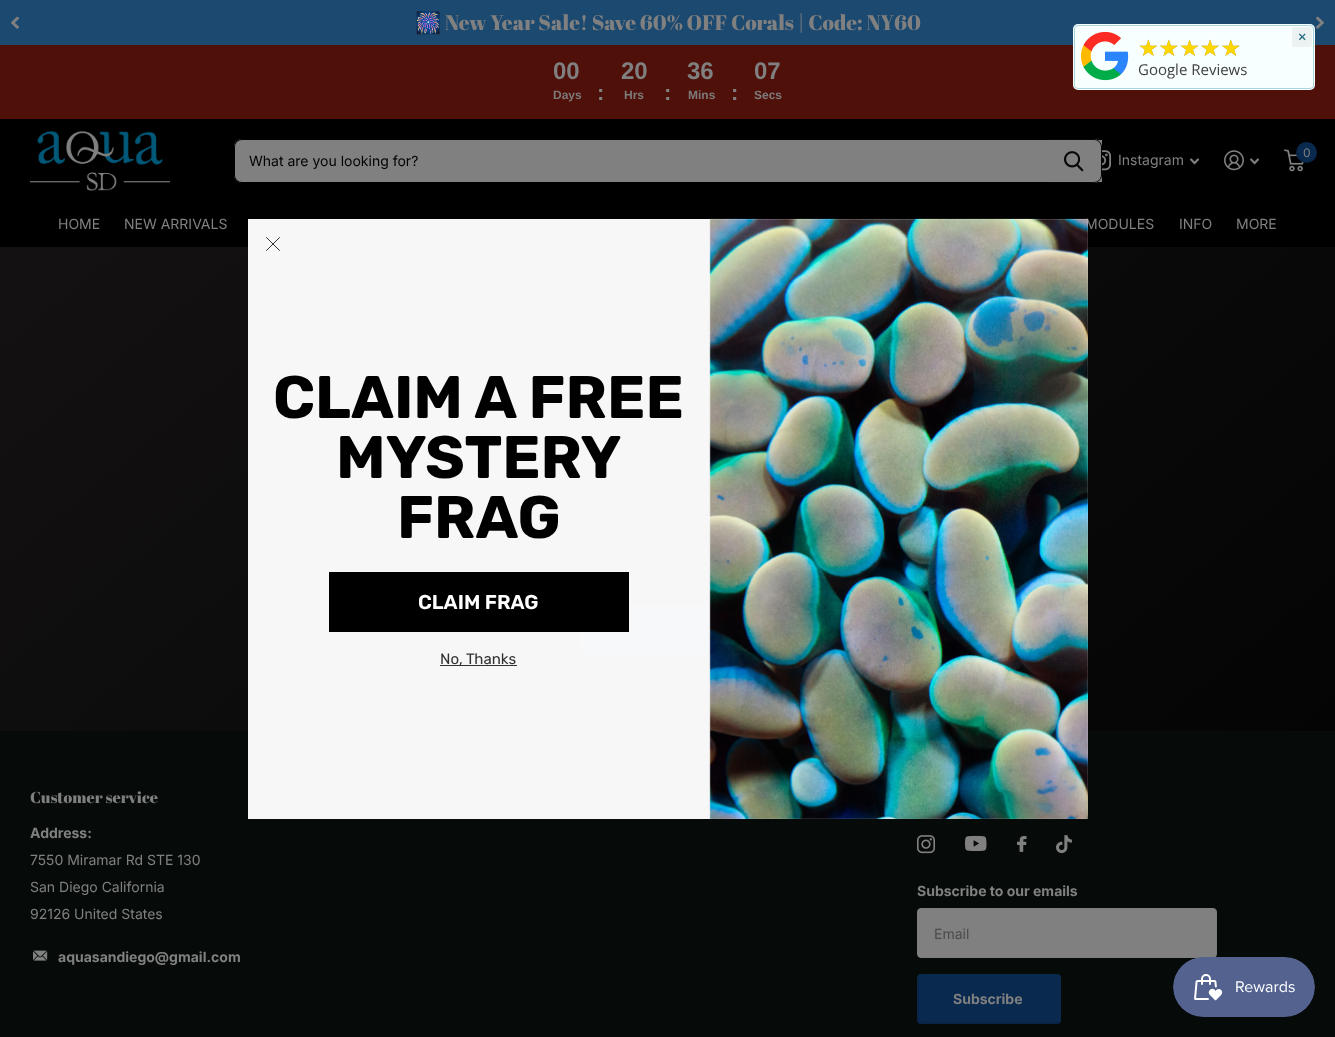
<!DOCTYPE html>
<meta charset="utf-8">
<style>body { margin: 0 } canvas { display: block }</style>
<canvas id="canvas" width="1335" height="1037"></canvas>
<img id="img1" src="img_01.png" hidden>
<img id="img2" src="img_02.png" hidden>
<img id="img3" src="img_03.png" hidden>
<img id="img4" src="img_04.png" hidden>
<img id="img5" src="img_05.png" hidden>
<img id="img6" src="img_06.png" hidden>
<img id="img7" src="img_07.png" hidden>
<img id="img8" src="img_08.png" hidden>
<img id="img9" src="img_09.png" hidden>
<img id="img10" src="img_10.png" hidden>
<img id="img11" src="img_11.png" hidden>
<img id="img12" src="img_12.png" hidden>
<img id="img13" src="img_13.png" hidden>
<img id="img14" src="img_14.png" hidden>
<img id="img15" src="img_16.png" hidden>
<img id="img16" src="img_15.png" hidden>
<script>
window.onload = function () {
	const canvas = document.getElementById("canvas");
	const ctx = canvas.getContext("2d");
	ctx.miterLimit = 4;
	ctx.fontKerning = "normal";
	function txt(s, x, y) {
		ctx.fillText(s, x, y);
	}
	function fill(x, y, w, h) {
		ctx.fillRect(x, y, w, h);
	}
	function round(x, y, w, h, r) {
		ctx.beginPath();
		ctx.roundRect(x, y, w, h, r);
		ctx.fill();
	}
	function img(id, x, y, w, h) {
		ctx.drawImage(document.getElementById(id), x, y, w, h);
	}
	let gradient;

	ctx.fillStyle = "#4F1009";
	fill(0, 0, 1335, 1037);
	ctx.fillStyle = "#1C496F";
	fill(0, 0, 1335, 45);
	img("img1", 11, 16, 8, 13);
	img("img2", 1316, 16, 8, 13);
	ctx.fillStyle = "#000000";
	fill(0, 119, 1335, 128);
	img("img3", 30, 131, 140, 60);
	ctx.fillStyle = "#808080";
	ctx.beginPath();
	ctx.roundRect(234, 139, 868, 44, [8, 0, 0, 8]);
	ctx.fill();
	ctx.fillStyle = "#000000";
	ctx.beginPath();
	ctx.moveTo(242, 139);
	ctx.lineTo(1102, 139);
	ctx.lineTo(1102, 183);
	ctx.lineTo(242, 183);
	ctx.bezierCurveTo(231, 183, 234, 168, 234, 161);
	ctx.bezierCurveTo(234, 154, 231, 139, 242, 139);
	ctx.closePath();
	ctx.moveTo(242, 140);
	ctx.lineTo(1102, 140);
	ctx.lineTo(1102, 182);
	ctx.lineTo(242, 182);
	ctx.bezierCurveTo(238, 182, 235, 179, 235, 175);
	ctx.lineTo(235, 147);
	ctx.bezierCurveTo(235, 143, 238, 140, 242, 140);
	ctx.closePath();
	ctx.fill("evenodd");
	ctx.fillStyle = "#808080";
	ctx.beginPath();
	ctx.roundRect(1047, 139, 55, 44, [0, 8, 8, 0]);
	ctx.fill();
	ctx.fillStyle = "#070606";
	ctx.beginPath();
	ctx.moveTo(1047, 139);
	ctx.lineTo(1094, 139);
	ctx.bezierCurveTo(1098, 139, 1102, 143, 1102, 147);
	ctx.lineTo(1102, 175);
	ctx.bezierCurveTo(1102, 179, 1098, 183, 1094, 183);
	ctx.lineTo(1047, 183);
	ctx.closePath();
	ctx.moveTo(1047, 140);
	ctx.lineTo(1094, 140);
	ctx.bezierCurveTo(1098, 140, 1101, 143, 1101, 147);
	ctx.lineTo(1101, 175);
	ctx.bezierCurveTo(1101, 179, 1098, 182, 1094, 182);
	ctx.lineTo(1047, 182);
	ctx.closePath();
	ctx.fill("evenodd");
	img("img4", 1064, 151, 20, 21);
	img("img5", 1102, 150, 9, 21);
	img("img6", 1190, 158, 9, 7);
	img("img7", 1224, 150, 20, 21);
	img("img6", 1250, 158, 9, 7);
	img("img8", 1284, 149, 20, 23);
	ctx.fillStyle = "#09294F";
	ctx.beginPath();
	ctx.arc(1306.5, 152.5, 10.5, 0, Math.PI * 2);
	ctx.fill();
	ctx.fillStyle = "rgba(0, 0, 0, 0.1)";
	ctx.beginPath();
	ctx.moveTo(1315, 158.5);
	ctx.bezierCurveTo(1313.5, 160, 1311, 161, 1308, 161);
	ctx.bezierCurveTo(1299, 161, 1296, 150.5, 1300, 144.5);
	ctx.bezierCurveTo(1295, 148, 1294.5, 155.5, 1299, 160);
	ctx.bezierCurveTo(1303.5, 164.5, 1311.5, 164, 1315, 158.5);
	ctx.closePath();
	ctx.fill();
	gradient = ctx.createLinearGradient(1193, 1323, 142, 71);
	gradient.addColorStop(0.04, "#010101");
	gradient.addColorStop(1, "#141212");
	ctx.fillStyle = gradient;
	fill(0, 247, 1335, 484);
	ctx.fillStyle = "#09294F";
	round(580, 605, 175, 50, 4);
	ctx.fillStyle = "rgba(0, 0, 0, 0.1)";
	ctx.beginPath();
	ctx.moveTo(582, 605);
	ctx.bezierCurveTo(581, 606, 580, 607, 580, 609);
	ctx.lineTo(580, 651);
	ctx.bezierCurveTo(580, 653, 582, 655, 584, 655);
	ctx.lineTo(751, 655);
	ctx.bezierCurveTo(753, 655, 754, 654, 755, 653);
	ctx.lineTo(753, 653);
	ctx.lineTo(586, 653);
	ctx.bezierCurveTo(584, 653, 582, 651, 582, 649);
	ctx.lineTo(582, 607);
	ctx.closePath();
	ctx.fill();
	ctx.fillStyle = "#060B0A";
	fill(0, 731, 1335, 306);
	img("img9", 33, 950, 15, 11);
	img("img10", 917, 835, 18, 19);
	img("img11", 965, 835, 22, 17);
	img("img12", 1017, 836, 10, 16);
	img("img13", 1056, 835, 16, 19);
	ctx.fillStyle = "#808080";
	ctx.beginPath();
	ctx.roundRect(917.5, 908.5, 299, 49, 3.5);
	ctx.fill();
	ctx.strokeStyle = "#7D7D7D";
	ctx.stroke();
	ctx.fillStyle = "#09294F";
	round(917, 974, 144, 50, 4);
	ctx.fillStyle = "rgba(0, 0, 0, 0.1)";
	ctx.beginPath();
	ctx.moveTo(919, 974);
	ctx.bezierCurveTo(918, 975, 917, 976, 917, 978);
	ctx.lineTo(917, 1020);
	ctx.bezierCurveTo(917, 1022, 919, 1024, 921, 1024);
	ctx.lineTo(1057, 1024);
	ctx.bezierCurveTo(1059, 1024, 1060, 1023, 1061, 1022);
	ctx.lineTo(1059, 1022);
	ctx.lineTo(923, 1022);
	ctx.bezierCurveTo(921, 1022, 919, 1020, 919, 1018);
	ctx.lineTo(919, 976);
	ctx.closePath();
	ctx.fill();
	ctx.fillStyle = "#F8FFFF";
	round(1073, 24, 242, 66, 5);
	ctx.beginPath();
	ctx.roundRect(1074.5, 25.5, 239, 63, 3.5);
	ctx.strokeStyle = "#A9D5DE";
	ctx.stroke();
	ctx.fillStyle = "#ECF2F2";
	round(1292, 27, 20, 20, 2);
	img("img14", 1080, 31, 49, 50);
	img("img15", 1173, 957, 142, 60);
	ctx.font = "21px Noto Color Emoji";
	ctx.fillStyle = "#808080";
	txt("🎆", 415, 30);
	ctx.font = "21px Abril Fatface";
	txt("New Year Sale! Save 60% OFF Corals | Code: NY60", 445, 30);
	ctx.font = "bold 24px Liberation Sans";
	txt("00", 553, 79);
	ctx.font = "bold 12px Liberation Sans";
	ctx.fillStyle = "#7D7A7A";
	txt("Days", 553, 99);
	ctx.font = "bold 22px Liberation Sans";
	ctx.fillStyle = "#808080";
	txt(":", 597, 100);
	ctx.font = "bold 24px Liberation Sans";
	txt("20", 621, 79);
	ctx.font = "bold 12px Liberation Sans";
	ctx.fillStyle = "#7D7A7A";
	txt("Hrs", 624, 99);
	ctx.font = "bold 22px Liberation Sans";
	ctx.fillStyle = "#808080";
	txt(":", 664, 100);
	ctx.font = "bold 24px Liberation Sans";
	txt("36", 687, 79);
	ctx.font = "bold 12px Liberation Sans";
	ctx.fillStyle = "#7D7A7A";
	txt("Mins", 688, 99);
	ctx.font = "bold 22px Liberation Sans";
	ctx.fillStyle = "#808080";
	txt(":", 731, 100);
	ctx.font = "bold 24px Liberation Sans";
	txt("07", 754, 79);
	ctx.font = "bold 12px Liberation Sans";
	ctx.fillStyle = "#7D7A7A";
	txt("Secs", 754, 99);
	ctx.font = "14px Inter";
	ctx.fillStyle = "#000000";
	txt("What are you looking for?", 249, 166);
	ctx.fillStyle = "#808080";
	txt("Instagram", 1118, 165);
	ctx.font = "12px Inter";
	txt("0", 1303, 157);
	ctx.font = "14px Inter";
	txt("HOME", 58, 229);
	txt("NEW ARRIVALS", 124, 229);
	txt("MODULES", 1085, 229);
	txt("INFO", 1179, 229);
	txt("MORE", 1236, 229);
	ctx.font = "16px Abril Fatface";
	txt("Customer service", 30, 803);
	ctx.font = "bold 14px Inter";
	txt("Address:", 30, 838);
	ctx.font = "14px Inter";
	txt("7550 Miramar Rd STE 130", 30, 865);
	txt("San Diego California", 30, 892);
	txt("92126 United States", 30, 919);
	ctx.font = "bold 14px Inter";
	txt("aquasandiego@gmail.com", 58, 962);
	txt("Subscribe to our emails", 917, 896);
	ctx.font = "14px Inter";
	ctx.fillStyle = "#4B4B4B";
	txt("Email", 934, 939);
	ctx.font = "bold 14px Inter";
	ctx.fillStyle = "#808080";
	txt("Subscribe", 953, 1004);
	ctx.font = "bold 14px Open Sans";
	ctx.fillStyle = "#276F86";
	txt("×", 1298, 42);
	ctx.font = "23px DejaVu Sans";
	ctx.fillStyle = "#808080";
	txt("★★★★★", 1138, 56);
	ctx.fillStyle = "#FFD700";
	txt("★★★★★", 1138, 56);
	ctx.font = "15px Open Sans";
	ctx.fillStyle = "#404040";
	txt("Google Reviews", 1138, 75);
	ctx.fillStyle = "rgba(255, 255, 255, 0.97)";
	fill(248, 219, 840, 600);
	ctx.beginPath();
	ctx.moveTo(266.5, 237.5);
	ctx.lineTo(279.5, 250.5);
	ctx.moveTo(279.5, 237.5);
	ctx.lineTo(266.5, 250.5);
	ctx.strokeStyle = "#000000";
	ctx.lineWidth = 0.8;
	ctx.lineCap = "round";
	ctx.stroke();
	ctx.font = "bold 60px Rubik";
	ctx.fillStyle = "#000000";
	txt("CLAIM A FREE", 273, 418);
	txt("MYSTERY", 336, 478);
	txt("FRAG", 397, 538);
	fill(329, 572, 300, 60);
	ctx.font = "600 20px Rubik";
	ctx.fillStyle = "#FFFFFF";
	txt("CLAIM FRAG", 418, 609);
	ctx.fillStyle = "#323232";
	fill(440, 665, 77, 1);
	ctx.font = "15px Rubik";
	ctx.fillStyle = "#313131";
	txt("No, Thanks", 440, 664);
	img("img16", 709, 218, 379, 601);
};
</script>
